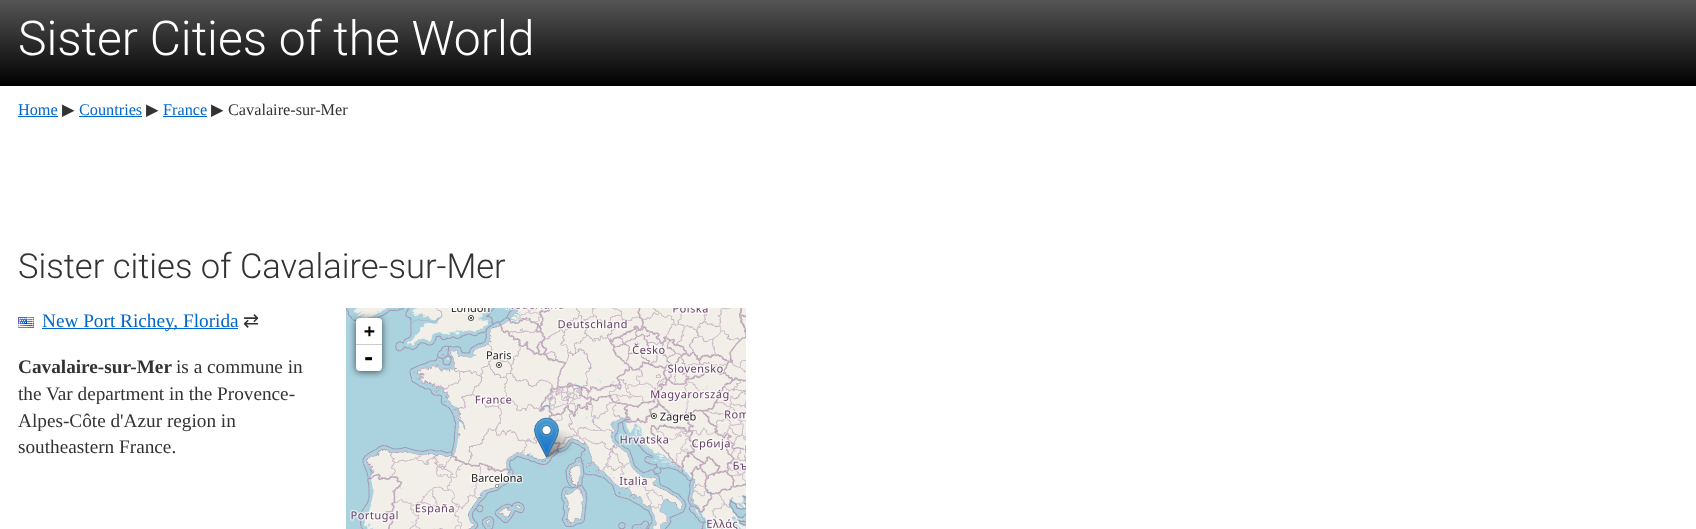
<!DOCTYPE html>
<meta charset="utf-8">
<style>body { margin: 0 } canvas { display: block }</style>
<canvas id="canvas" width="1696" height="529"></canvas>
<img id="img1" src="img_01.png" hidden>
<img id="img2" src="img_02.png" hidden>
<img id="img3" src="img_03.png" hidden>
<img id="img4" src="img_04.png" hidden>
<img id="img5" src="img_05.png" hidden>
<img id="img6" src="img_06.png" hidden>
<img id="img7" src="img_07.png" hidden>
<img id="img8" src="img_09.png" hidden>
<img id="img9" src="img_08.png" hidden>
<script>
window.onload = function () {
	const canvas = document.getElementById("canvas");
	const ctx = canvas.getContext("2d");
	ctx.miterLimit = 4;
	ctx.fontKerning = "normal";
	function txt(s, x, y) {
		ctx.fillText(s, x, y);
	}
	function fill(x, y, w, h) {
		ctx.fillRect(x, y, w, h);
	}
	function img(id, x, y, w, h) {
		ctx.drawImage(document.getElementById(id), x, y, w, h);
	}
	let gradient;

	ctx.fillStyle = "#FFFFFF";
	fill(0, 0, 1696, 529);
	gradient = ctx.createLinearGradient(848, 0, 848, 86);
	gradient.addColorStop(0, "#555555");
	gradient.addColorStop(1, "#000000");
	ctx.fillStyle = gradient;
	fill(0, 0, 1696, 86);
	ctx.fillStyle = "#0066CC";
	fill(18, 116, 40, 1);
	fill(79, 116, 63, 1);
	fill(163, 116, 44, 1);
	img("img1", 18, 317, 16, 11);
	fill(42, 328, 196, 1);
	img("img2", 346, 308, 126, 184);
	img("img3", 472, 308, 256, 184);
	img("img4", 728, 308, 18, 184);
	img("img5", 346, 492, 126, 37);
	img("img6", 472, 492, 256, 37);
	img("img7", 728, 492, 18, 37);
	img("img8", 544, 430, 29, 28);
	img("img9", 534, 417, 25, 41);
	ctx.fillStyle = "rgba(0, 0, 0, 0.65)";
	ctx.filter = "blur(3.5px)";
	ctx.beginPath();
	ctx.roundRect(356, 319, 26, 53, 4);
	ctx.fill();
	ctx.filter = "none";
	ctx.fillStyle = "#FFFFFF";
	ctx.beginPath();
	ctx.roundRect(356, 318, 26, 27, [4, 4, 0, 0]);
	ctx.fill();
	ctx.fillStyle = "#CCCCCC";
	fill(356, 344, 26, 1);
	ctx.fillStyle = "#FFFFFF";
	ctx.beginPath();
	ctx.roundRect(356, 345, 26, 26, [0, 0, 4, 4]);
	ctx.fill();
	ctx.font = "300 48px Roboto";
	txt("Sister Cities of the World", 18, 55);
	ctx.font = "16.25px Liberation Serif";
	ctx.fillStyle = "#0066CC";
	txt("Home", 18, 115);
	ctx.font = "16.25px DejaVu Sans";
	ctx.fillStyle = "#333333";
	txt("▶", 62, 115);
	ctx.font = "16.25px Liberation Serif";
	ctx.fillStyle = "#0066CC";
	txt("Countries", 79, 115);
	ctx.font = "16.25px DejaVu Sans";
	ctx.fillStyle = "#333333";
	txt("▶", 146, 115);
	ctx.font = "16.25px Liberation Serif";
	ctx.fillStyle = "#0066CC";
	txt("France", 163, 115);
	ctx.font = "16.25px DejaVu Sans";
	ctx.fillStyle = "#333333";
	txt("▶", 211, 115);
	ctx.font = "16.25px Liberation Serif";
	txt("Cavalaire-sur-Mer", 228, 115);
	ctx.font = "300 34.5px Roboto";
	txt("Sister cities of Cavalaire-sur-Mer", 18, 278);
	ctx.font = "19.25px Liberation Serif";
	ctx.fillStyle = "#0066CC";
	txt("New Port Richey, Florida", 42, 327);
	ctx.font = "19.25px DejaVu Sans";
	ctx.fillStyle = "#333333";
	txt("⇄", 243, 327);
	ctx.font = "bold 18px DejaVu Sans Mono";
	ctx.fillStyle = "#000000";
	txt("+", 364, 337);
	ctx.font = "bold 22px DejaVu Sans Mono";
	txt("-", 362, 365);
	ctx.font = "bold 19.25px Liberation Serif";
	ctx.fillStyle = "#333333";
	txt("Cavalaire-sur-Mer", 18, 373);
	ctx.font = "19.25px Liberation Serif";
	txt("is a commune in", 176, 373);
	txt("the Var department in the Provence-", 18, 400);
	txt("Alpes-Côte d'Azur region in", 18, 427);
	txt("southeastern France.", 18, 453);
};
</script>
